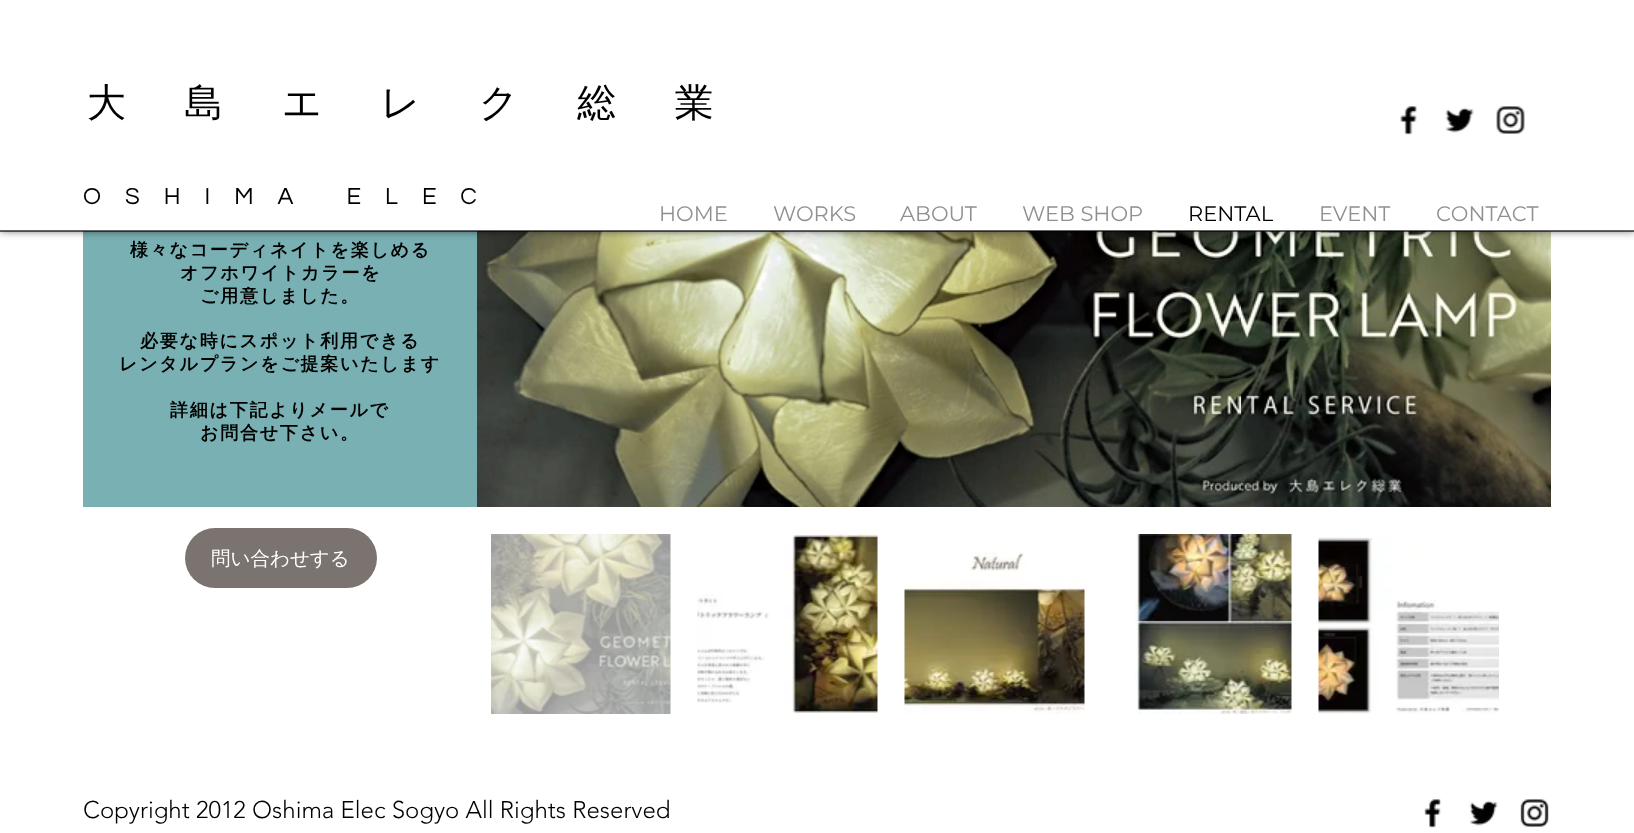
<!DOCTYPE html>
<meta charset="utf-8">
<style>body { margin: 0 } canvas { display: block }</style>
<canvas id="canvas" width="1634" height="833"></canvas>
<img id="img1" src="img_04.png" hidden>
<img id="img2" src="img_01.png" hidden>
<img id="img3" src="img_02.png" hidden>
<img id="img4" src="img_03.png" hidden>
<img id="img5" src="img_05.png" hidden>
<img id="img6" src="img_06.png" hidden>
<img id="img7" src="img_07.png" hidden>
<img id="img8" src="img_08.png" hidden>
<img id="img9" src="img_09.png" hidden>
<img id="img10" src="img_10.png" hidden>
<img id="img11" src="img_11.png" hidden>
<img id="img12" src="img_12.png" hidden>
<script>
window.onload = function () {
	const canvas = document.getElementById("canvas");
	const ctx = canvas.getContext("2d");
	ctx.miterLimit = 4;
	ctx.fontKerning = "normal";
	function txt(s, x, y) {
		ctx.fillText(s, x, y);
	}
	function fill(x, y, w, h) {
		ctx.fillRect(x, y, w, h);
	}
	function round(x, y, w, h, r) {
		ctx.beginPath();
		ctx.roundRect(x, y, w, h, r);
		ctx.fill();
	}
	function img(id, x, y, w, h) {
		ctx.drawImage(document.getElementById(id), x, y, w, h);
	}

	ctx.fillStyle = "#FFFFFF";
	fill(0, 0, 1634, 833);
	ctx.fillStyle = "#79B0B3";
	fill(83, 231, 394, 276);
	img("img1", 477, 231, 1074, 276);
	ctx.fillStyle = "rgba(0, 0, 0, 0.6)";
	ctx.filter = "blur(4px)";
	ctx.beginPath();
	ctx.rect(0, 0, 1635, 231);
	ctx.fill();
	ctx.filter = "none";
	ctx.fillStyle = "#FFFFFF";
	fill(0, 0, 1634, 231);
	ctx.fillStyle = "rgba(0, 0, 0, 0.6)";
	fill(0, 230, 1634, 2);
	img("img2", 1400, 106, 17, 29);
	img("img3", 1445, 107, 29, 26);
	img("img4", 1496, 106, 29, 28);
	img("img5", 491, 534, 180, 180);
	img("img6", 697, 534, 181, 180);
	img("img7", 904, 552, 181, 162);
	img("img8", 1135, 534, 157, 180);
	img("img9", 1318, 537, 181, 177);
	ctx.fillStyle = "#7B736F";
	round(185, 528, 192, 60, 30);
	img("img10", 1424, 799, 17, 29);
	img("img11", 1469, 800, 29, 26);
	img("img12", 1520, 799, 29, 28);
	ctx.letterSpacing = "58.5px";
	ctx.font = "500 39px WenQuanYi Zen Hei";
	ctx.fillStyle = "#000000";
	txt("大島エレク総業", 87, 116);
	ctx.letterSpacing = "24px";
	ctx.font = "24px Questrial";
	txt("OSHIMA ELEC", 83, 204);
	ctx.letterSpacing = "0px";
	ctx.font = "21px Montserrat";
	ctx.fillStyle = "#909090";
	txt("HOME", 659, 221);
	txt("WORKS", 773, 221);
	txt("ABOUT", 900, 221);
	txt("WEB SHOP", 1022, 221);
	ctx.fillStyle = "#000000";
	txt("RENTAL", 1188, 221);
	ctx.fillStyle = "#909090";
	txt("EVENT", 1319, 221);
	txt("CONTACT", 1436, 221);
	ctx.letterSpacing = "1.75px";
	ctx.font = "bold 18px WenQuanYi Zen Hei";
	ctx.fillStyle = "#000000";
	txt("様々なコーディネイトを楽しめる", 130, 256);
	txt("オフホワイトカラーを", 180, 279);
	txt("ご用意しました。", 200, 302);
	txt("必要な時にスポット利用できる", 140, 347);
	txt("レンタルプランをご提案いたします", 119, 370);
	txt("詳細は下記よりメールで", 170, 416);
	txt("お問合せ下さい。", 200, 439);
	ctx.letterSpacing = "0px";
	ctx.font = "500 19.5px WenQuanYi Zen Hei";
	ctx.fillStyle = "#FFFFFF";
	txt("問い合わせする", 211, 565);
	ctx.font = "300 24px 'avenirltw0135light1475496'";
	ctx.fillStyle = "#000000";
	txt("Copyright 2012 Oshima Elec Sogyo All Rights Reserved", 83, 818);
};
</script>
